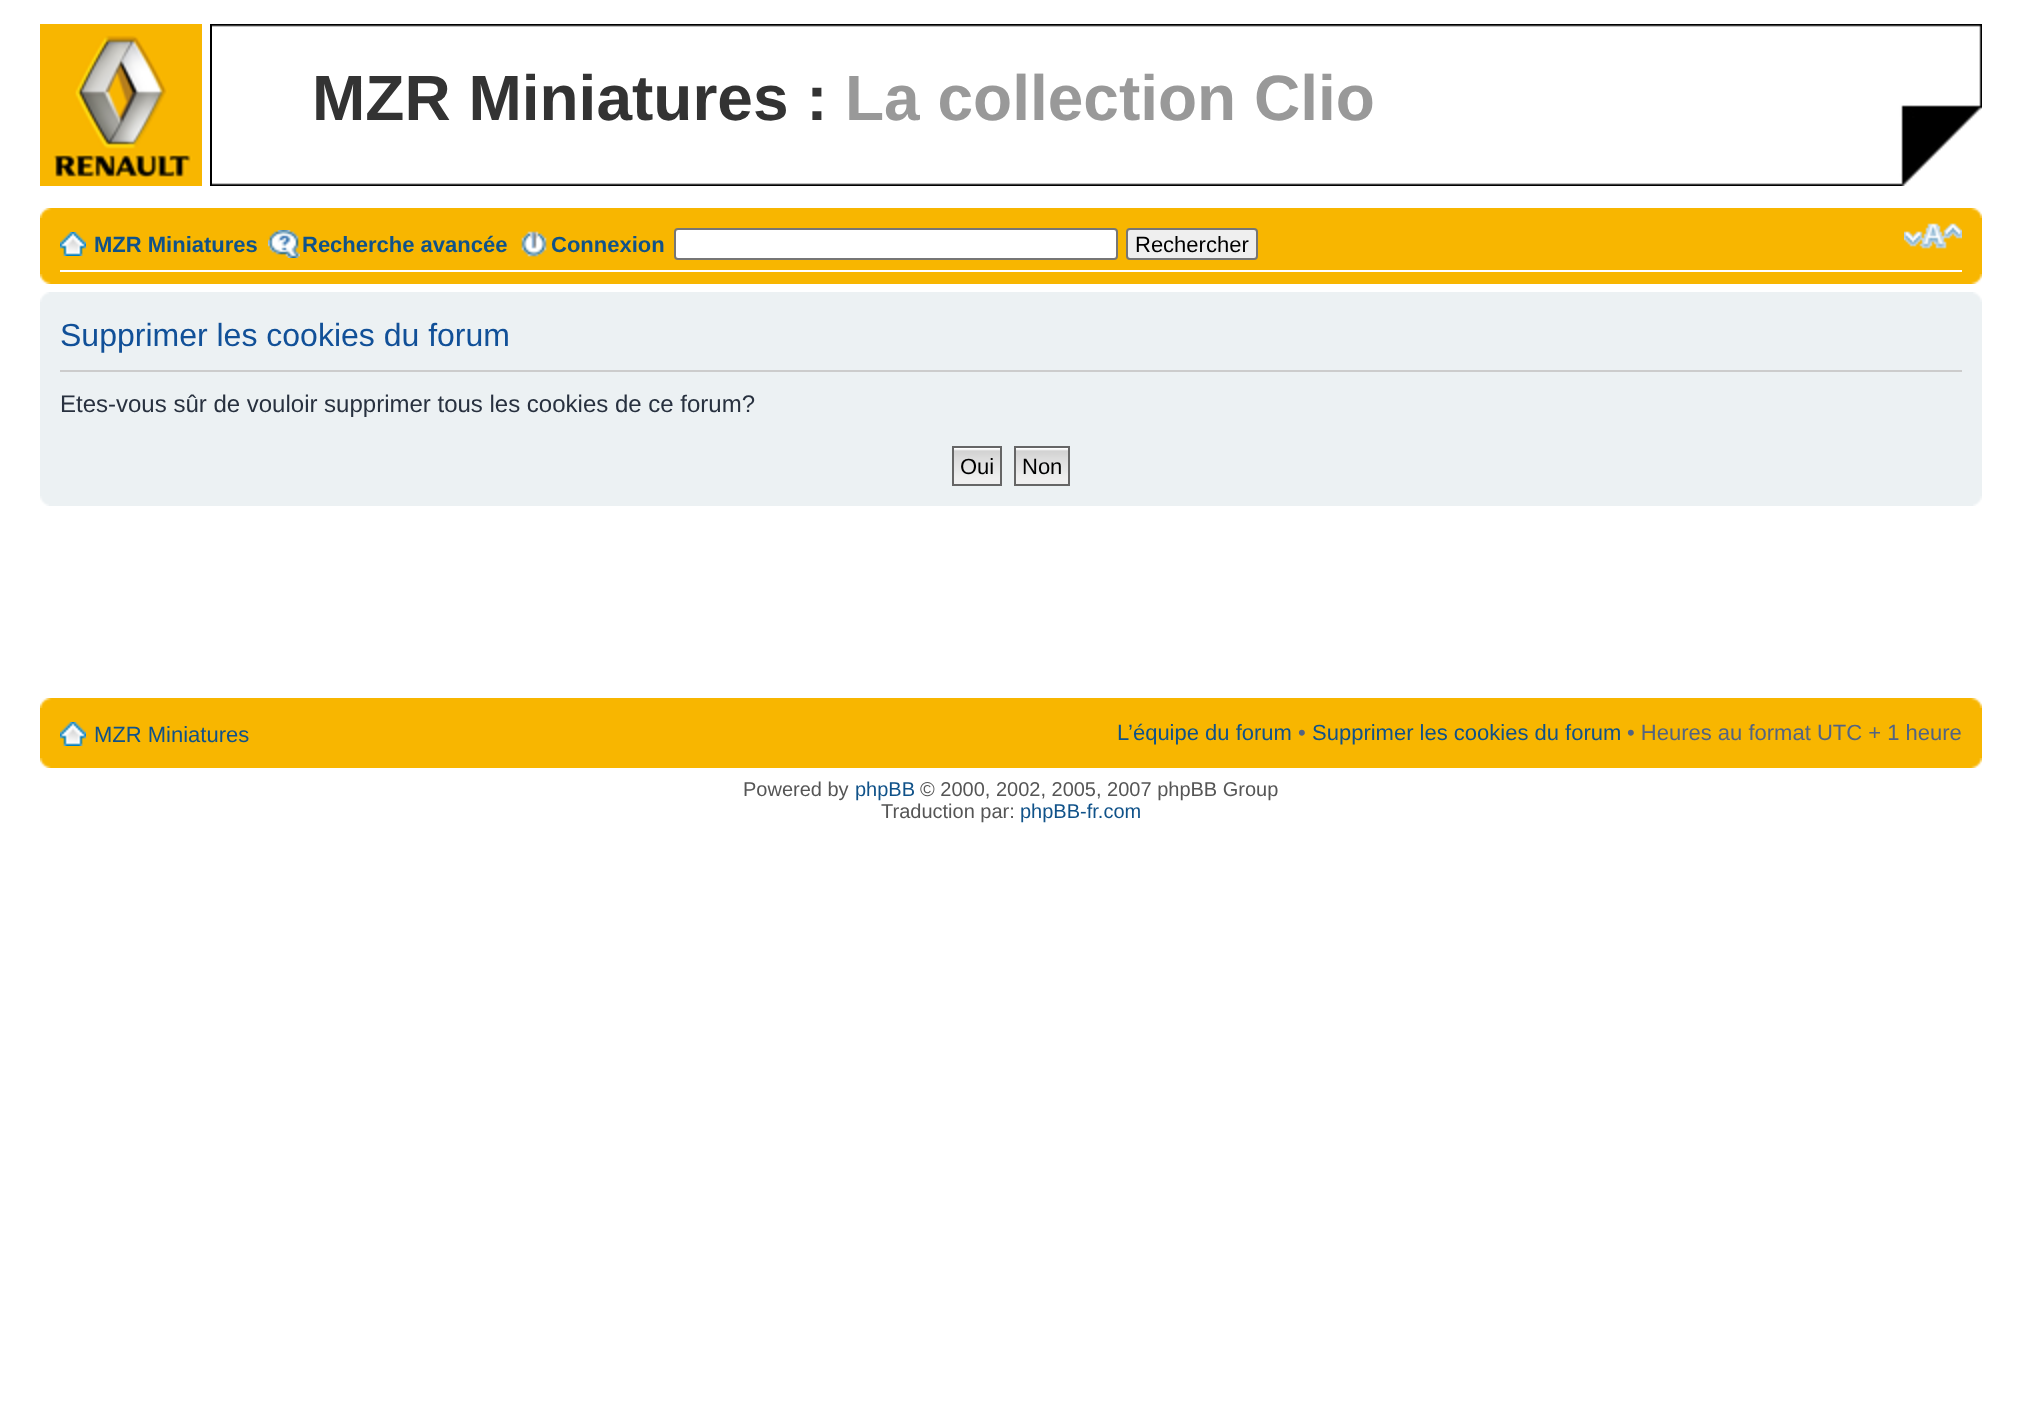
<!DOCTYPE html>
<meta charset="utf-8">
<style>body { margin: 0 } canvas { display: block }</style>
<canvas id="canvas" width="2021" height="1408"></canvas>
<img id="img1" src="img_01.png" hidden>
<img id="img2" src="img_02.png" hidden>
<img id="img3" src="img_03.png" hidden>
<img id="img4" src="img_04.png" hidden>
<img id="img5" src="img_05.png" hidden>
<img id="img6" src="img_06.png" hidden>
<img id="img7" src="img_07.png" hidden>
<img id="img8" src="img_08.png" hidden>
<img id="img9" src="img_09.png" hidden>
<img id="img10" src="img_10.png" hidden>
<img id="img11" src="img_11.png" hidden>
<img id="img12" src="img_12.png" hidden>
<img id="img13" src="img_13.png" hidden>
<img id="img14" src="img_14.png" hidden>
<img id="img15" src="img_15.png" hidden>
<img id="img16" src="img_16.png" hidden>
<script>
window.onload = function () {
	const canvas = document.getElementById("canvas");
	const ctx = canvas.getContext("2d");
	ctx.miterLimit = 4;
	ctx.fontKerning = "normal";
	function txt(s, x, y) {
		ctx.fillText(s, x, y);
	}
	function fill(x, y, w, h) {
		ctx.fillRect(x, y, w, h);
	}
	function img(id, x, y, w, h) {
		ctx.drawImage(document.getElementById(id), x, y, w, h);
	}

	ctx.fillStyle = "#FFFFFF";
	fill(0, 0, 2021, 1408);
	img("img1", 40, 24, 162, 162);
	img("img2", 212, 24, 1770, 162);
	ctx.fillStyle = "#000000";
	fill(210, 24, 2, 162);
	ctx.fillStyle = "#F8B600";
	fill(40, 208, 1942, 76);
	img("img3", 40, 208, 12, 10);
	img("img4", 1970, 208, 12, 10);
	ctx.fillStyle = "#FFFFFF";
	fill(60, 270, 1902, 2);
	img("img5", 60, 232, 26, 24);
	img("img6", 268, 230, 32, 28);
	img("img7", 521, 231, 26, 26);
	ctx.beginPath();
	ctx.roundRect(675, 229, 442, 30, 3);
	ctx.fill();
	ctx.strokeStyle = "#767676";
	ctx.lineWidth = 2;
	ctx.stroke();
	ctx.fillStyle = "#EFEFEF";
	ctx.beginPath();
	ctx.roundRect(1127, 229, 130, 30, 3);
	ctx.fill();
	ctx.stroke();
	img("img8", 1904, 223, 58, 26);
	img("img9", 40, 274, 11, 10);
	img("img10", 1971, 274, 11, 10);
	ctx.fillStyle = "#ECF1F3";
	fill(40, 292, 1942, 214);
	img("img11", 40, 292, 9, 10);
	img("img12", 1973, 292, 9, 10);
	ctx.fillStyle = "#CCCCCC";
	fill(60, 370, 1902, 2);
	img("img13", 954, 448, 46, 36);
	ctx.strokeStyle = "#666666";
	ctx.strokeRect(953, 447, 48, 38);
	img("img14", 1016, 448, 52, 36);
	ctx.strokeRect(1015, 447, 54, 38);
	img("img15", 40, 496, 9, 10);
	img("img16", 1973, 496, 9, 10);
	ctx.fillStyle = "#F8B600";
	fill(40, 698, 1942, 70);
	img("img3", 40, 698, 12, 10);
	img("img4", 1970, 698, 12, 10);
	img("img5", 60, 722, 26, 24);
	img("img9", 40, 758, 11, 10);
	img("img10", 1971, 758, 11, 10);
	ctx.font = "bold 64px Liberation Sans";
	ctx.fillStyle = "#333333";
	txt("MZR Miniatures :", 312, 120);
	ctx.fillStyle = "#999999";
	txt("La collection Clio", 845, 120);
	ctx.font = "bold 22px Liberation Sans";
	ctx.fillStyle = "#105289";
	txt("MZR Miniatures", 94, 252);
	txt("Recherche avancée", 302, 252);
	txt("Connexion", 551, 252);
	ctx.font = "22px Liberation Sans";
	ctx.fillStyle = "#000000";
	txt("Rechercher", 1135, 252);
	ctx.font = "32px Liberation Sans";
	ctx.fillStyle = "#115098";
	txt("Supprimer les cookies du forum", 60, 346);
	ctx.font = "24px Liberation Sans";
	ctx.fillStyle = "#28313F";
	txt("Etes-vous sûr de vouloir supprimer tous les cookies de ce forum?", 60, 412);
	ctx.font = "22px Liberation Sans";
	ctx.fillStyle = "#000000";
	txt("Oui", 960, 474);
	txt("Non", 1022, 474);
	ctx.fillStyle = "#105289";
	txt("MZR Miniatures", 94, 742);
	txt("L’équipe du forum", 1117, 740);
	ctx.fillStyle = "#536482";
	txt("•", 1298, 740);
	ctx.fillStyle = "#105289";
	txt("Supprimer les cookies du forum", 1312, 740);
	ctx.fillStyle = "#536482";
	txt("• Heures au format UTC + 1 heure", 1627, 740);
	ctx.font = "20px Liberation Sans";
	ctx.fillStyle = "#555555";
	txt("Powered by", 743, 796);
	ctx.fillStyle = "#105289";
	txt("phpBB", 855, 796);
	ctx.fillStyle = "#555555";
	txt("© 2000, 2002, 2005, 2007 phpBB Group", 920, 796);
	txt("Traduction par:", 881, 818);
	ctx.fillStyle = "#105289";
	txt("phpBB-fr.com", 1020, 818);
};
</script>
